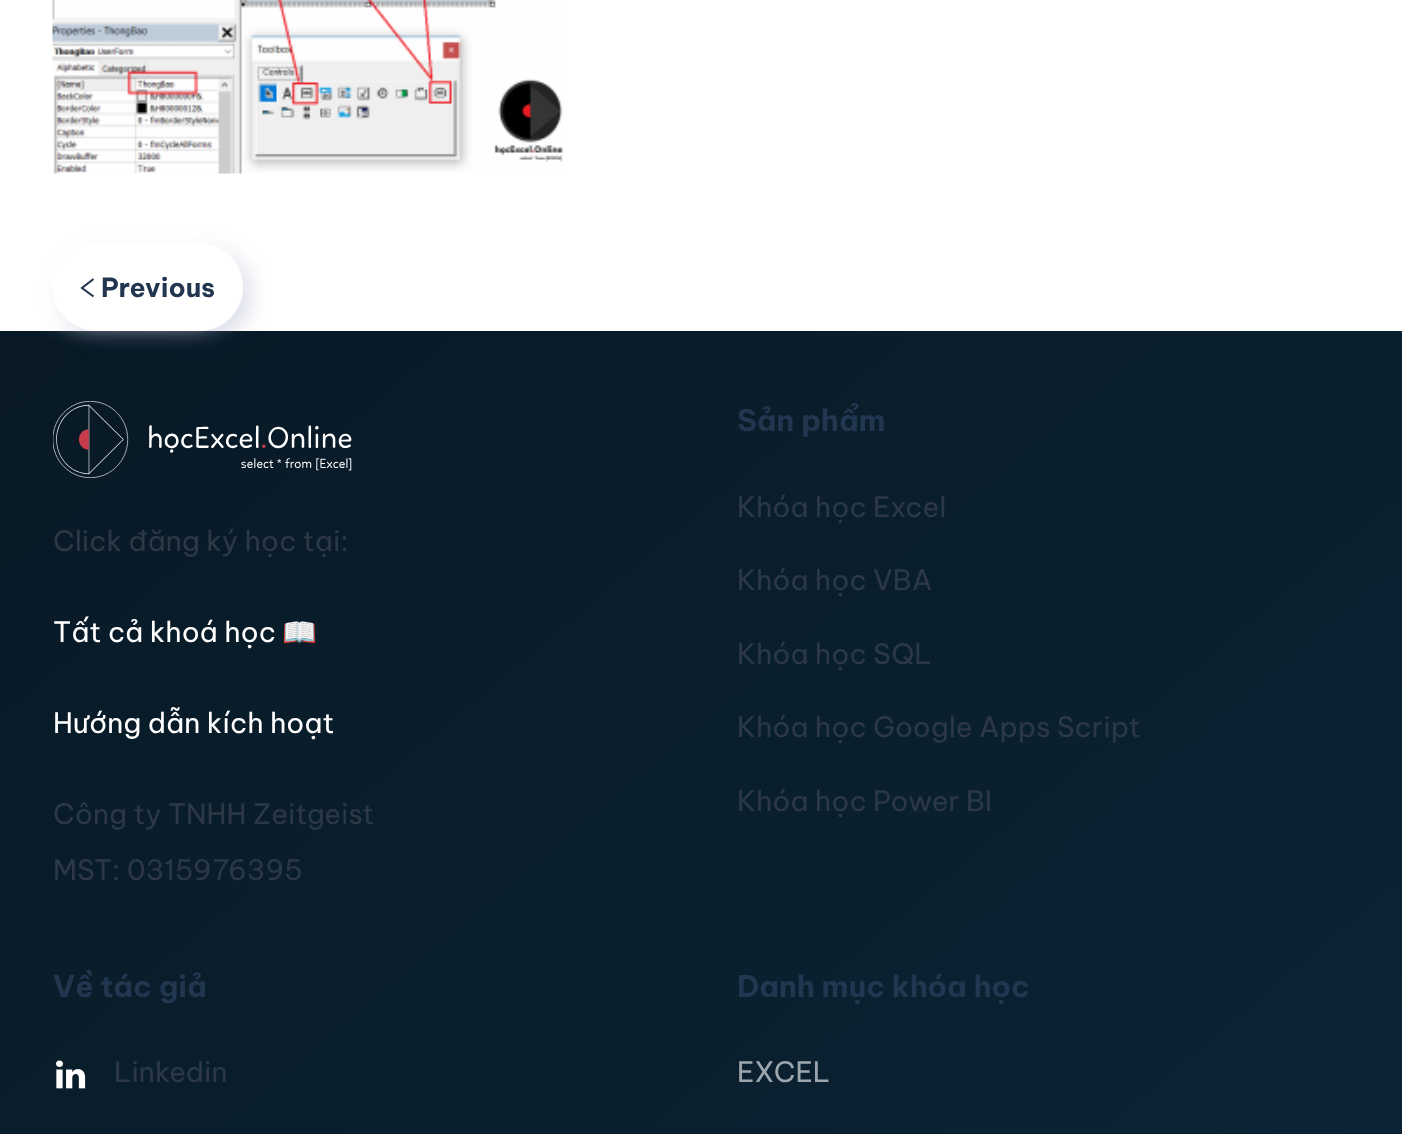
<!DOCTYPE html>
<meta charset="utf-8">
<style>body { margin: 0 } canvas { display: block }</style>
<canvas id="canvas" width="1402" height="1134"></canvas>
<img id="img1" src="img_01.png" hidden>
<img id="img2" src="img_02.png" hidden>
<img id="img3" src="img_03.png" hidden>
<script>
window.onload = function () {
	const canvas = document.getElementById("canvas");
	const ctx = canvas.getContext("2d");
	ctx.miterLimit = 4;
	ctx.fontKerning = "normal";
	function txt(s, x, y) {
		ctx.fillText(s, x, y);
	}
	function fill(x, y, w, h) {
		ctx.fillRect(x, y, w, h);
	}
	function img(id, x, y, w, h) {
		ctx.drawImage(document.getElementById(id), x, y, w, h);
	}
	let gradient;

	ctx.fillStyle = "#FFFFFF";
	fill(0, 0, 1402, 1134);
	img("img1", 52, 0, 512, 174);
	gradient = ctx.createLinearGradient(1361, 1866, 43, 295);
	gradient.addColorStop(0, "#0C273A");
	gradient.addColorStop(1, "#081925");
	ctx.fillStyle = gradient;
	fill(0, 331, 1402, 803);
	ctx.save();
	ctx.beginPath();
	ctx.moveTo(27, 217);
	ctx.lineTo(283, 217);
	ctx.lineTo(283, 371);
	ctx.lineTo(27, 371);
	ctx.closePath();
	ctx.moveTo(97, 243);
	ctx.lineTo(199, 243);
	ctx.bezierCurveTo(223.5, 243, 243, 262.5, 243, 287);
	ctx.bezierCurveTo(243, 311.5, 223.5, 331, 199, 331);
	ctx.lineTo(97, 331);
	ctx.bezierCurveTo(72.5, 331, 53, 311.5, 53, 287);
	ctx.bezierCurveTo(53, 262.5, 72.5, 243, 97, 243);
	ctx.closePath();
	ctx.clip("evenodd");
	ctx.fillStyle = "rgba(57, 65, 124, 0.2)";
	ctx.filter = "blur(10.5px)";
	ctx.beginPath();
	ctx.roundRect(60, 250, 190, 88, 44);
	ctx.fill();
	ctx.filter = "none";
	ctx.restore();
	ctx.save();
	ctx.beginPath();
	ctx.moveTo(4, 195);
	ctx.lineTo(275, 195);
	ctx.lineTo(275, 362);
	ctx.lineTo(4, 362);
	ctx.closePath();
	ctx.moveTo(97, 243);
	ctx.lineTo(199, 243);
	ctx.bezierCurveTo(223.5, 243, 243, 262.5, 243, 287);
	ctx.bezierCurveTo(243, 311.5, 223.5, 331, 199, 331);
	ctx.lineTo(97, 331);
	ctx.bezierCurveTo(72.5, 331, 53, 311.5, 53, 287);
	ctx.bezierCurveTo(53, 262.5, 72.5, 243, 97, 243);
	ctx.closePath();
	ctx.clip("evenodd");
	ctx.fillStyle = "rgba(255, 255, 255, 0.9)";
	ctx.filter = "blur(13px)";
	ctx.beginPath();
	ctx.roundRect(44, 235, 191, 87, 43.5);
	ctx.fill();
	ctx.filter = "none";
	ctx.restore();
	ctx.beginPath();
	ctx.moveTo(93.5, 279);
	ctx.lineTo(82, 288);
	ctx.lineTo(93.5, 296.5);
	ctx.strokeStyle = "#223650";
	ctx.lineWidth = 2.1;
	ctx.stroke();
	img("img2", 53, 401, 299, 77);
	img("img3", 56, 1060, 30, 29);
	ctx.font = "bold 26.25px Be Vietnam Pro";
	ctx.fillStyle = "#223650";
	txt("Previous", 101, 297);
	ctx.font = "28px Be Vietnam Pro";
	ctx.fillStyle = "#2D3847";
	txt("Click đăng ký học tại:", 53, 551);
	ctx.fillStyle = "#FFFFFF";
	txt("Tất cả khoá học", 53, 642);
	ctx.font = "28px Noto Color Emoji";
	txt("📖", 282, 642);
	ctx.font = "28px Be Vietnam Pro";
	txt("Hướng dẫn kích hoạt", 53, 733);
	ctx.fillStyle = "#2D3847";
	txt("Công ty TNHH Zeitgeist", 53, 824);
	txt("MST: 0315976395", 53, 880);
	ctx.font = "bold 29.75px Be Vietnam Pro";
	ctx.fillStyle = "#223650";
	txt("Sản phẩm", 737, 431);
	ctx.font = "28px Be Vietnam Pro";
	ctx.fillStyle = "#2D3847";
	txt("Khóa học Excel", 737, 517);
	txt("Khóa học VBA", 737, 590);
	txt("Khóa học SQL", 737, 664);
	txt("Khóa học Google Apps Script", 737, 737);
	txt("Khóa học Power BI", 737, 811);
	ctx.font = "bold 29.75px Be Vietnam Pro";
	ctx.fillStyle = "#223650";
	txt("Về tác giả", 53, 997);
	ctx.font = "28px Be Vietnam Pro";
	ctx.fillStyle = "#2D3847";
	txt("Linkedin", 114, 1082);
	ctx.font = "bold 29.75px Be Vietnam Pro";
	ctx.fillStyle = "#223650";
	txt("Danh mục khóa học", 737, 997);
	ctx.font = "28px Be Vietnam Pro";
	ctx.fillStyle = "#9DA6AC";
	txt("EXCEL", 737, 1082);
};
</script>
